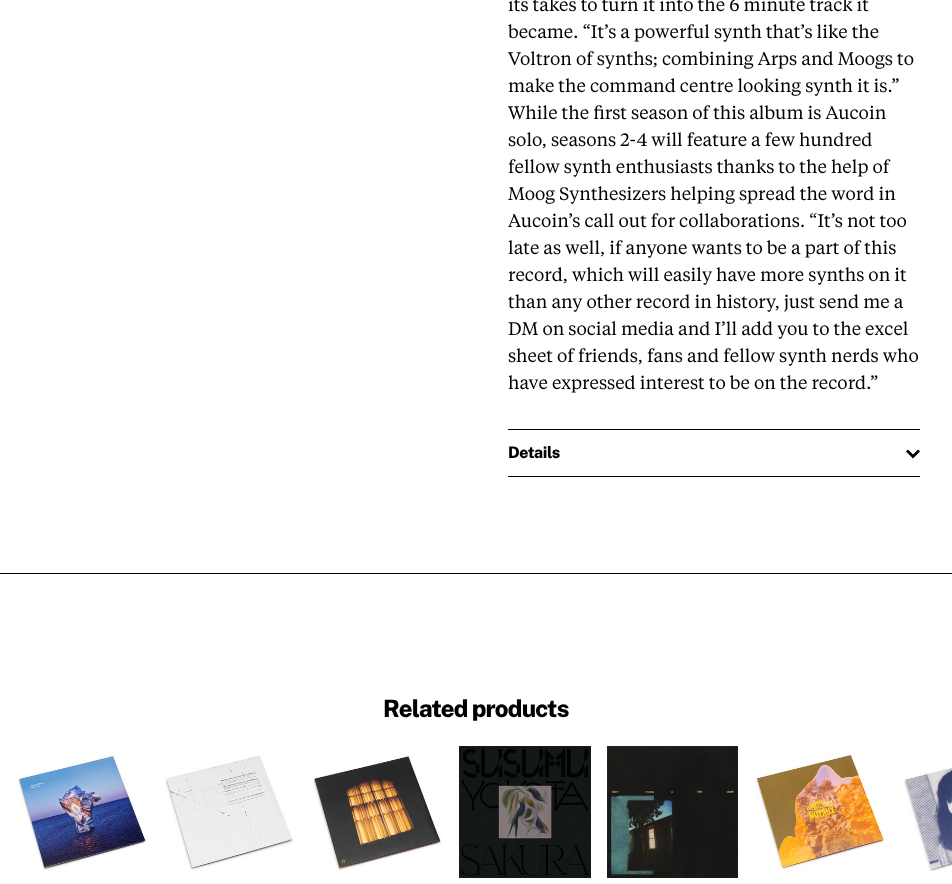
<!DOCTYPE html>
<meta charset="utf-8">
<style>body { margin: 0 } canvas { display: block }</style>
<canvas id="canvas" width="952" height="884"></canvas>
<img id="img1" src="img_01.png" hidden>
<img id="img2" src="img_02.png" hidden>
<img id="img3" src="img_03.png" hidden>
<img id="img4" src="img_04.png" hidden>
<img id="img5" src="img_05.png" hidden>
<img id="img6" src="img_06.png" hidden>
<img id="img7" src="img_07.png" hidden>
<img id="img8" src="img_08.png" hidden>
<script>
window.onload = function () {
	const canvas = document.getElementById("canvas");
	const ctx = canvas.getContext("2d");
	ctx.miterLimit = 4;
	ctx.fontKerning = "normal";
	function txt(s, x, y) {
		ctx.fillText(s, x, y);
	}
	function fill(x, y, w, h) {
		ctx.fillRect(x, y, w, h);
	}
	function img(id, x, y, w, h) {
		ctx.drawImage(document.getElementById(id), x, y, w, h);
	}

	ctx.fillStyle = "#FFFFFF";
	fill(0, 0, 952, 884);
	ctx.fillStyle = "#000000";
	fill(508, 429, 412, 1);
	fill(508, 476, 412, 1);
	img("img1", 906, 449, 14, 10);
	fill(0, 573, 952, 1);
	img("img2", 16, 755, 131, 115);
	img("img3", 164, 755, 130, 115);
	img("img4", 312, 755, 130, 116);
	img("img5", 459, 746, 132, 132);
	img("img6", 607, 746, 131, 132);
	img("img7", 754, 754, 131, 116);
	img("img8", 903, 767, 49, 104);
	ctx.font = "18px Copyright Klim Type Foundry";
	txt("its takes to turn it into the 6 minute track it", 508, 11);
	txt("became. “It’s a powerful synth that’s like the", 508, 38);
	txt("Voltron of synths; combining Arps and Moogs to", 508, 65);
	txt("make the command centre looking synth it is.”", 508, 92);
	txt("While the first season of this album is Aucoin", 508, 119);
	txt("solo, seasons 2-4 will feature a few hundred", 508, 146);
	txt("fellow synth enthusiasts thanks to the help of", 508, 173);
	txt("Moog Synthesizers helping spread the word in", 508, 200);
	txt("Aucoin’s call out for collaborations. “It’s not too", 508, 227);
	txt("late as well, if anyone wants to be a part of this", 508, 254);
	txt("record, which will easily have more synths on it", 508, 281);
	txt("than any other record in history, just send me a", 508, 308);
	txt("DM on social media and I’ll add you to the excel", 508, 335);
	txt("sheet of friends, fans and fellow synth nerds who", 508, 362);
	txt("have expressed interest to be on the record.”", 508, 389);
	ctx.letterSpacing = "-0.5px";
	ctx.font = "100 16px Public Sans";
	txt("Details", 508, 458);
	ctx.letterSpacing = "-0.75px";
	ctx.font = "100 24px Public Sans";
	txt("Related products", 383, 717);
};
</script>
